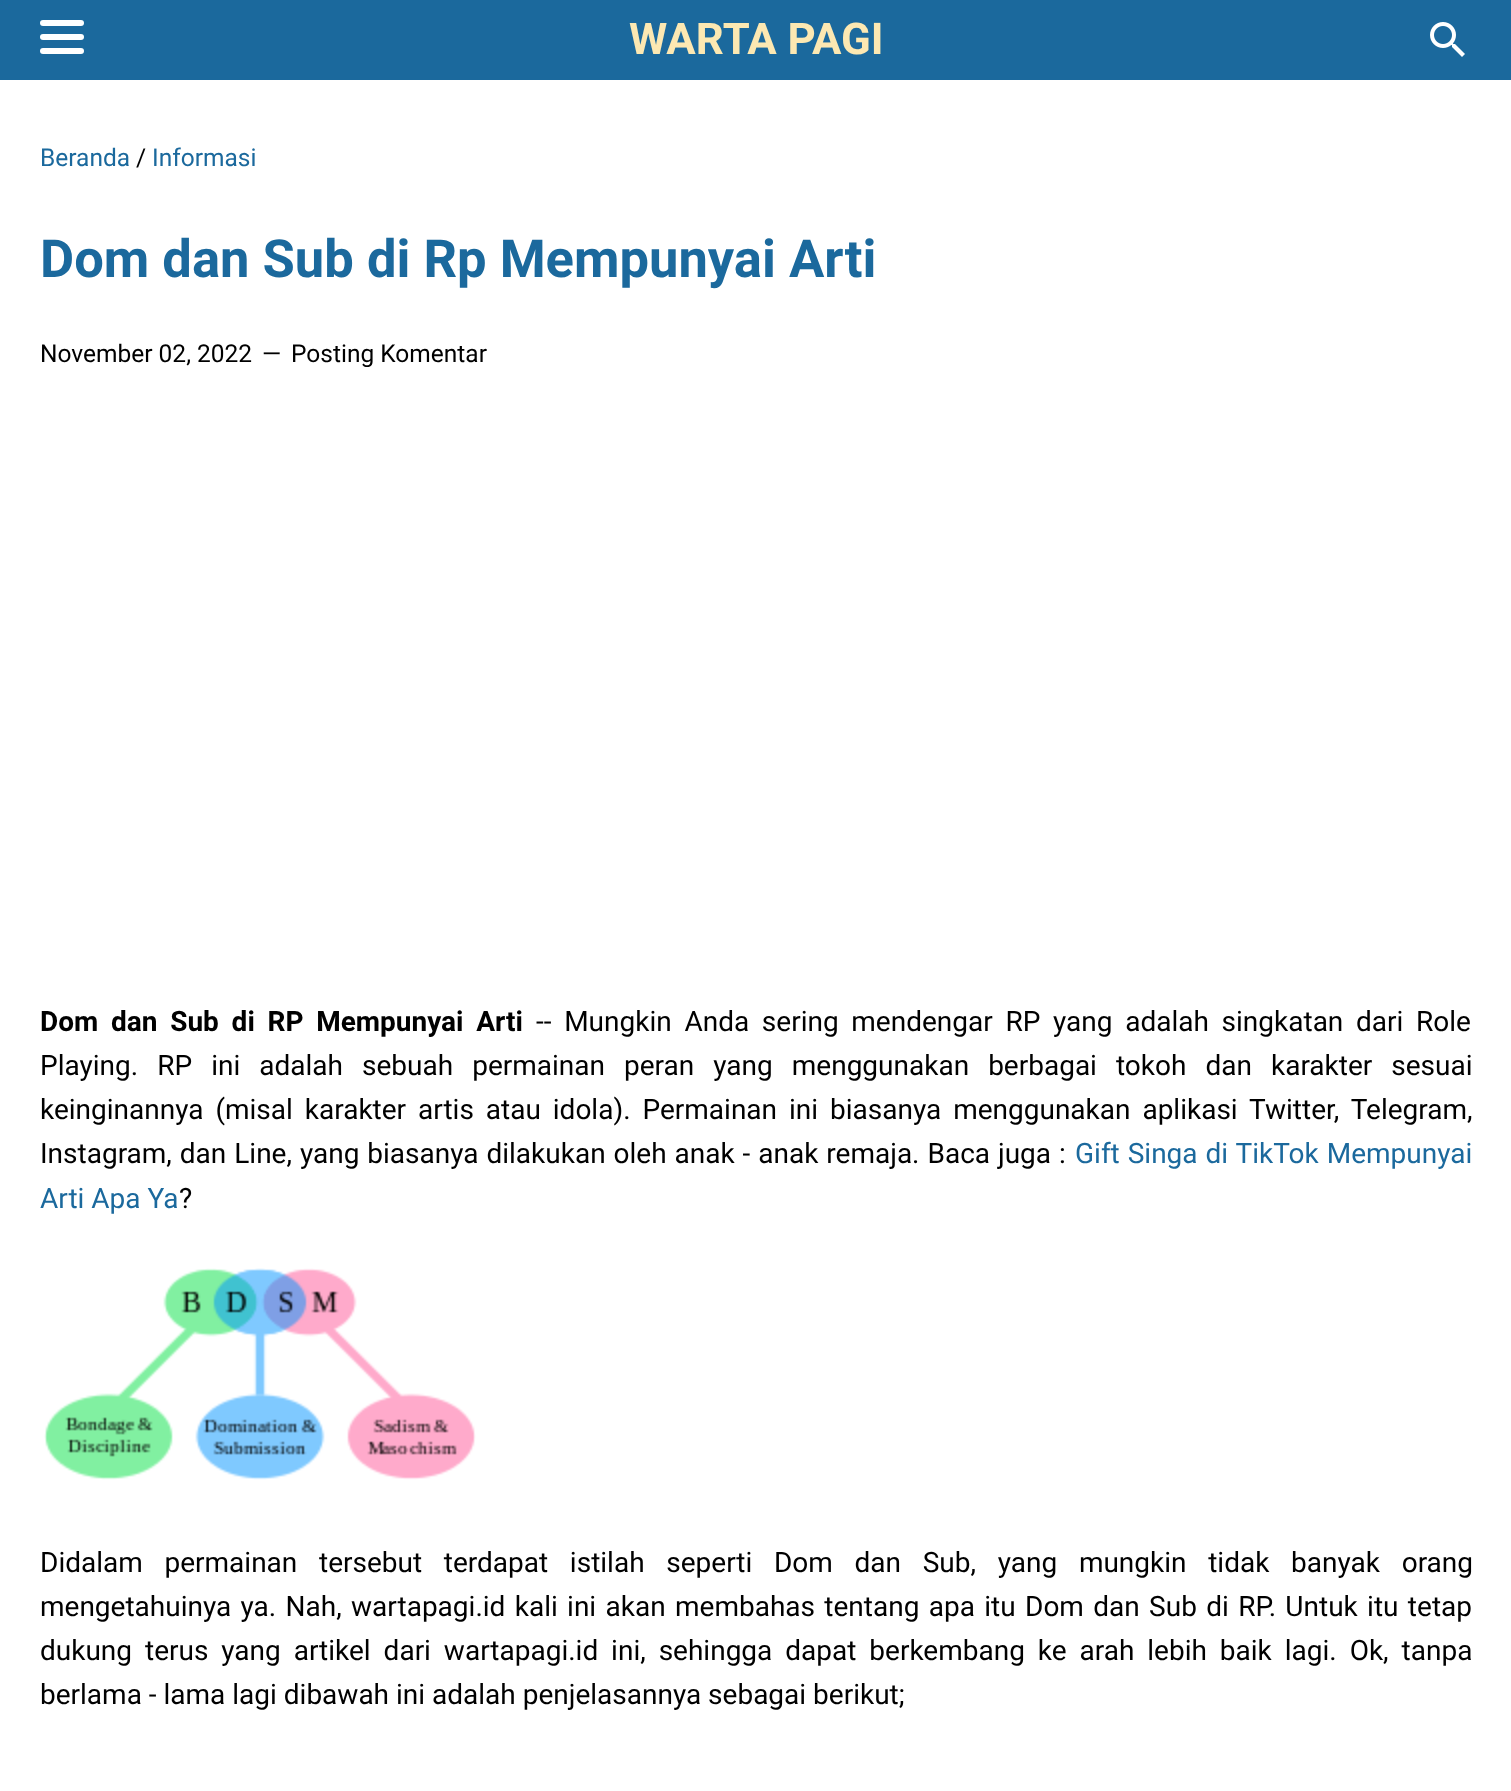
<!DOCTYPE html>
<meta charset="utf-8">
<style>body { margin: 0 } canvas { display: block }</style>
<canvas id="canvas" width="1511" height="1791"></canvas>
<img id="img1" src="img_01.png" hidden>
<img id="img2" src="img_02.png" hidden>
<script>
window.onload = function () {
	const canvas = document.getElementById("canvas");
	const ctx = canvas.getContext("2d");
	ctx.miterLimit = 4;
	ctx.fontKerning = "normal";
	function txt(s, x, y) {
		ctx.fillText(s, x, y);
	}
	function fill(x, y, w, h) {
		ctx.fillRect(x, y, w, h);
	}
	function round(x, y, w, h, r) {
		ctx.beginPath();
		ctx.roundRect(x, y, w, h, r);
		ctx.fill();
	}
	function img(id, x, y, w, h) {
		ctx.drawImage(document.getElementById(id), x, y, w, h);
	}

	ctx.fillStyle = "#FFFFFF";
	fill(0, 0, 1511, 1791);
	ctx.fillStyle = "#1B699D";
	fill(0, 0, 1511, 80);
	ctx.fillStyle = "#FFFFFF";
	round(40, 20, 44, 6, 3);
	round(40, 34, 44, 6, 3);
	round(40, 48, 44, 6, 3);
	img("img1", 1430, 22, 35, 35);
	img("img2", 44, 1268, 432, 212);
	ctx.font = "bold 43.75px Roboto";
	ctx.fillStyle = "#FCE8B2";
	txt("WARTA PAGI", 629, 54);
	ctx.font = "24.5px Roboto";
	ctx.fillStyle = "#1B699D";
	txt("Beranda", 40, 166);
	ctx.fillStyle = "#000000";
	txt("/", 136, 166);
	ctx.fillStyle = "#1B699D";
	txt("Informasi", 152, 166);
	ctx.font = "bold 52.5px Roboto";
	txt("Dom dan Sub di Rp Mempunyai Arti", 40, 277);
	ctx.font = "24.5px Roboto";
	ctx.fillStyle = "#000000";
	txt("November 02, 2022", 40, 362);
	txt("—", 262, 362);
	txt("Posting Komentar", 291, 362);
	ctx.wordSpacing = "5.75px";
	ctx.font = "bold 28px Roboto";
	txt("Dom dan Sub di RP Mempunyai Arti", 40, 1031);
	ctx.font = "28px Roboto";
	txt("-- Mungkin Anda sering mendengar RP yang adalah singkatan dari Role", 536, 1031);
	ctx.wordSpacing = "12.1px";
	txt("Playing. RP ini adalah sebuah permainan peran yang menggunakan berbagai tokoh dan karakter sesuai", 40, 1075);
	ctx.wordSpacing = "5px";
	txt("keinginannya (misal karakter artis atau idola). Permainan ini biasanya menggunakan aplikasi Twitter, Telegram,", 40, 1119);
	ctx.wordSpacing = "1px";
	txt("Instagram, dan Line, yang biasanya dilakukan oleh anak - anak remaja. Baca juga :", 40, 1163);
	ctx.fillStyle = "#1B699D";
	txt("Gift Singa di TikTok Mempunyai", 1075, 1163);
	ctx.wordSpacing = "0px";
	txt("Arti Apa Ya", 40, 1208);
	ctx.fillStyle = "#000000";
	txt("?", 179, 1208);
	ctx.wordSpacing = "14.75px";
	txt("Didalam permainan tersebut terdapat istilah seperti Dom dan Sub, yang mungkin tidak banyak orang", 40, 1572);
	ctx.wordSpacing = "2.4px";
	txt("mengetahuinya ya. Nah, wartapagi.id kali ini akan membahas tentang apa itu Dom dan Sub di RP. Untuk itu tetap", 40, 1616);
	ctx.wordSpacing = "6px";
	txt("dukung terus yang artikel dari wartapagi.id ini, sehingga dapat berkembang ke arah lebih baik lagi. Ok, tanpa", 40, 1660);
	ctx.wordSpacing = "0px";
	txt("berlama - lama lagi dibawah ini adalah penjelasannya sebagai berikut;", 40, 1704);
};
</script>
